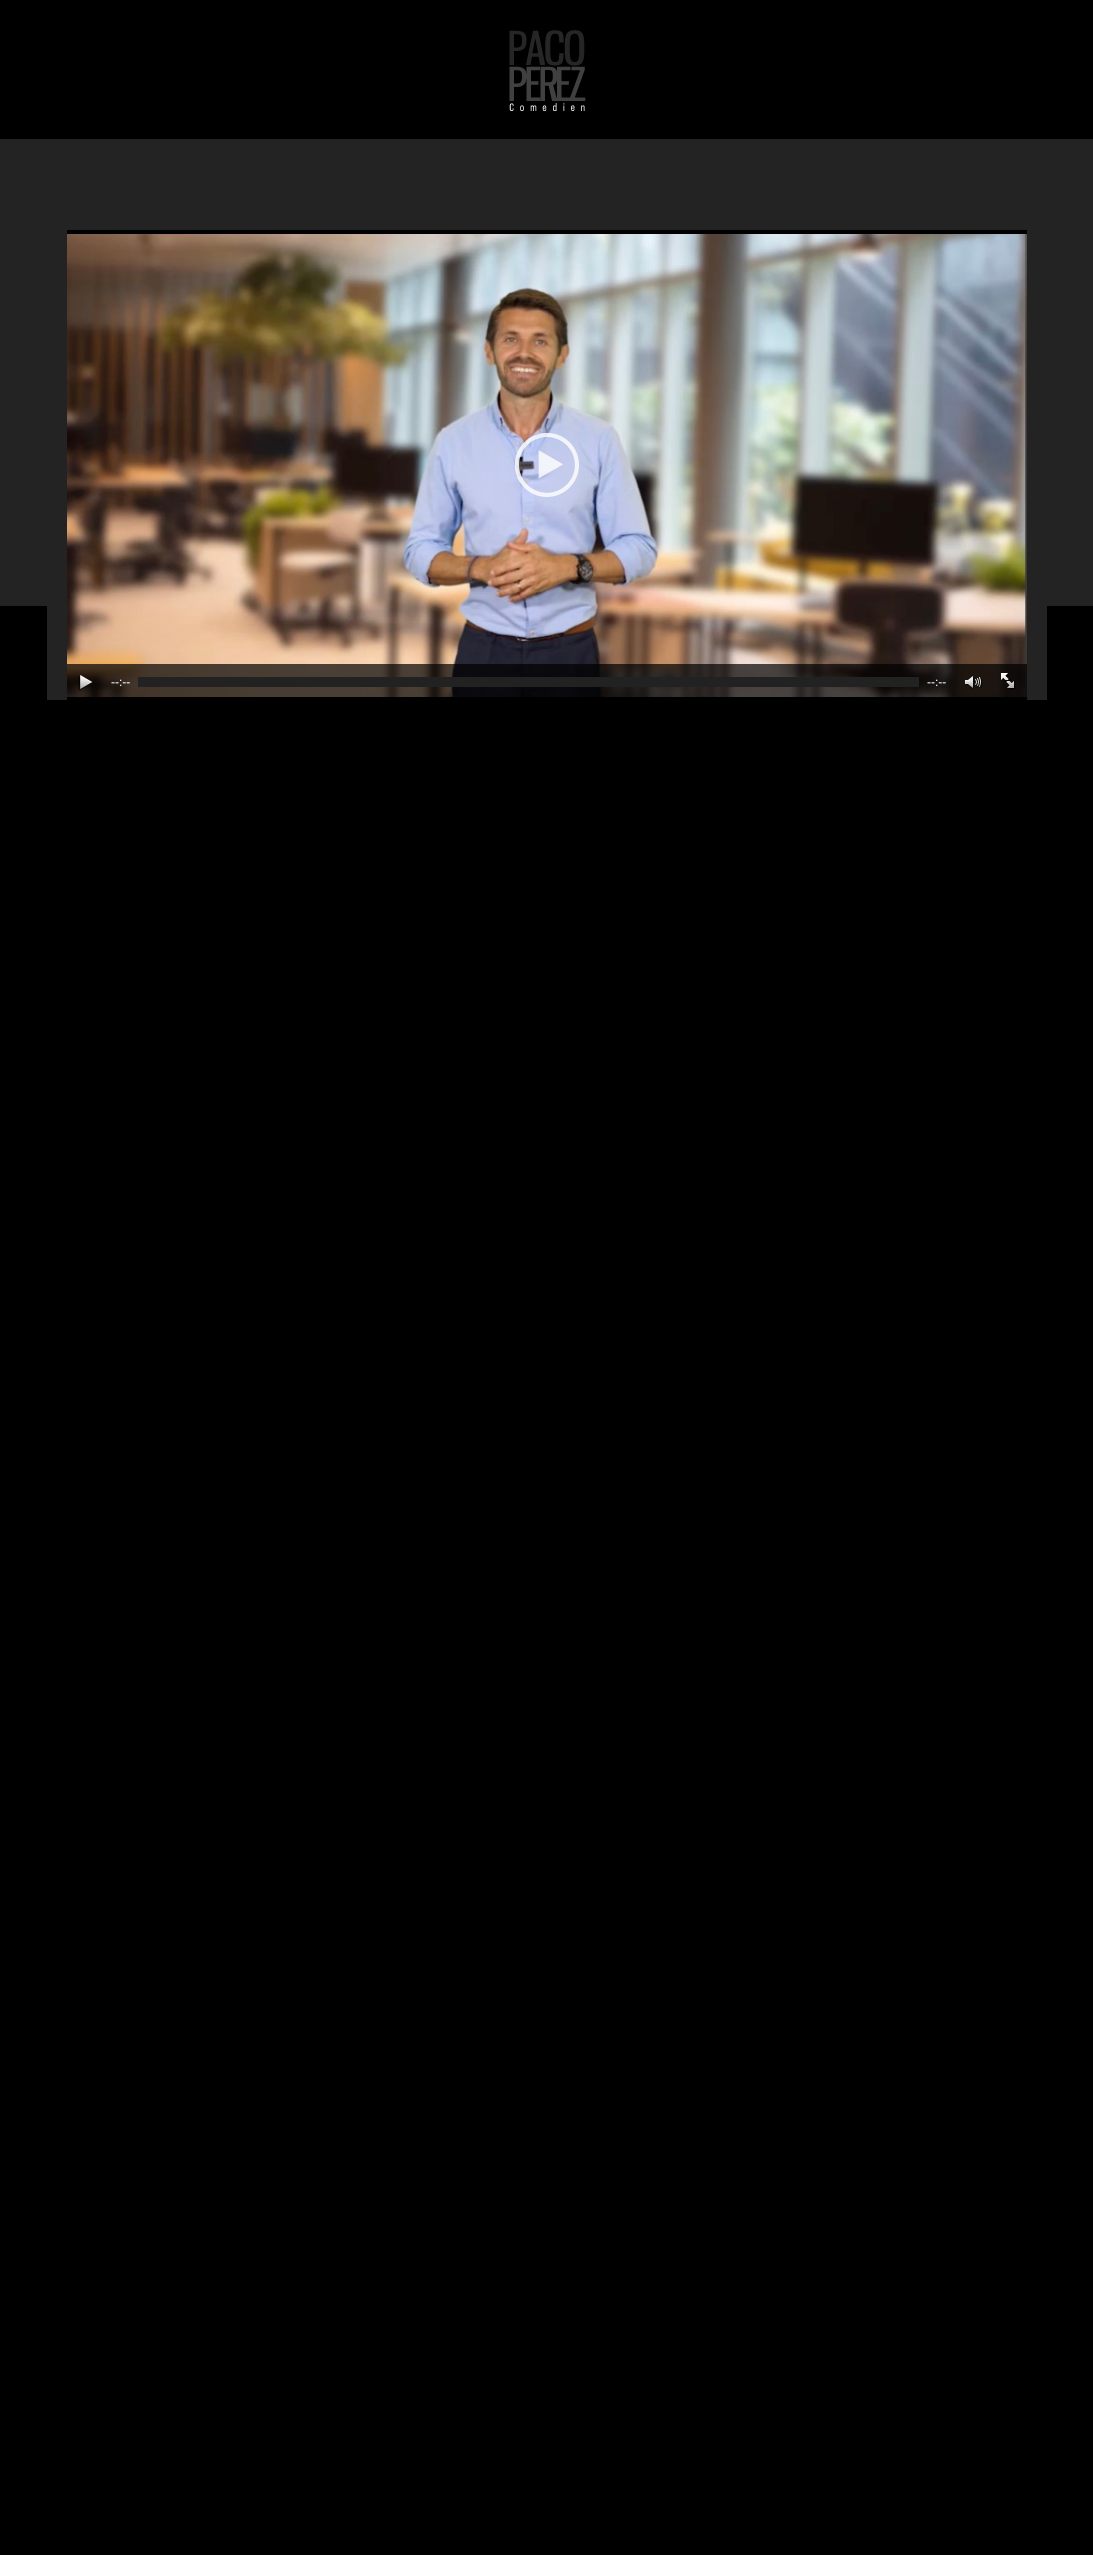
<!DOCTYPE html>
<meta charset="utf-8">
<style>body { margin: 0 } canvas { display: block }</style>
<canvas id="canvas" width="1093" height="2555"></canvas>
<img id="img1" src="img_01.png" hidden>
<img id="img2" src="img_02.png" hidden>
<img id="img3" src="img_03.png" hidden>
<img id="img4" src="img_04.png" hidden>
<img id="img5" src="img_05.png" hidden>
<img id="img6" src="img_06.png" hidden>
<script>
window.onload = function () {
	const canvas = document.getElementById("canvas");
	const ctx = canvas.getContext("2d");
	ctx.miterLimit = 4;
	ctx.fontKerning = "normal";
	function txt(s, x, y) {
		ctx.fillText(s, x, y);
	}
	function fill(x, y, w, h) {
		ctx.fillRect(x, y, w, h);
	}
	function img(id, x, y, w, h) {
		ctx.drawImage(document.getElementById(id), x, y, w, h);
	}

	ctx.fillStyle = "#000000";
	fill(0, 0, 1093, 2555);
	ctx.fillStyle = "#232323";
	fill(0, 139, 1093, 467);
	img("img1", 509, 30, 77, 81);
	fill(47, 606, 1000, 94);
	ctx.fillStyle = "#000000";
	fill(67, 230, 960, 470);
	img("img2", 67, 234, 960, 463);
	img("img3", 515, 433, 64, 64);
	ctx.fillStyle = "rgba(0, 0, 0, 0.7)";
	fill(67, 664, 960, 33);
	img("img4", 78, 675, 15, 16);
	ctx.fillStyle = "#222222";
	fill(138, 677, 781, 10);
	img("img5", 965, 676, 18, 13);
	img("img6", 1001, 673, 15, 17);
	ctx.font = "12px Liberation Sans";
	ctx.fillStyle = "#FFFFFF";
	txt("--:--", 111, 686);
	txt("--:--", 927, 686);
};
</script>
